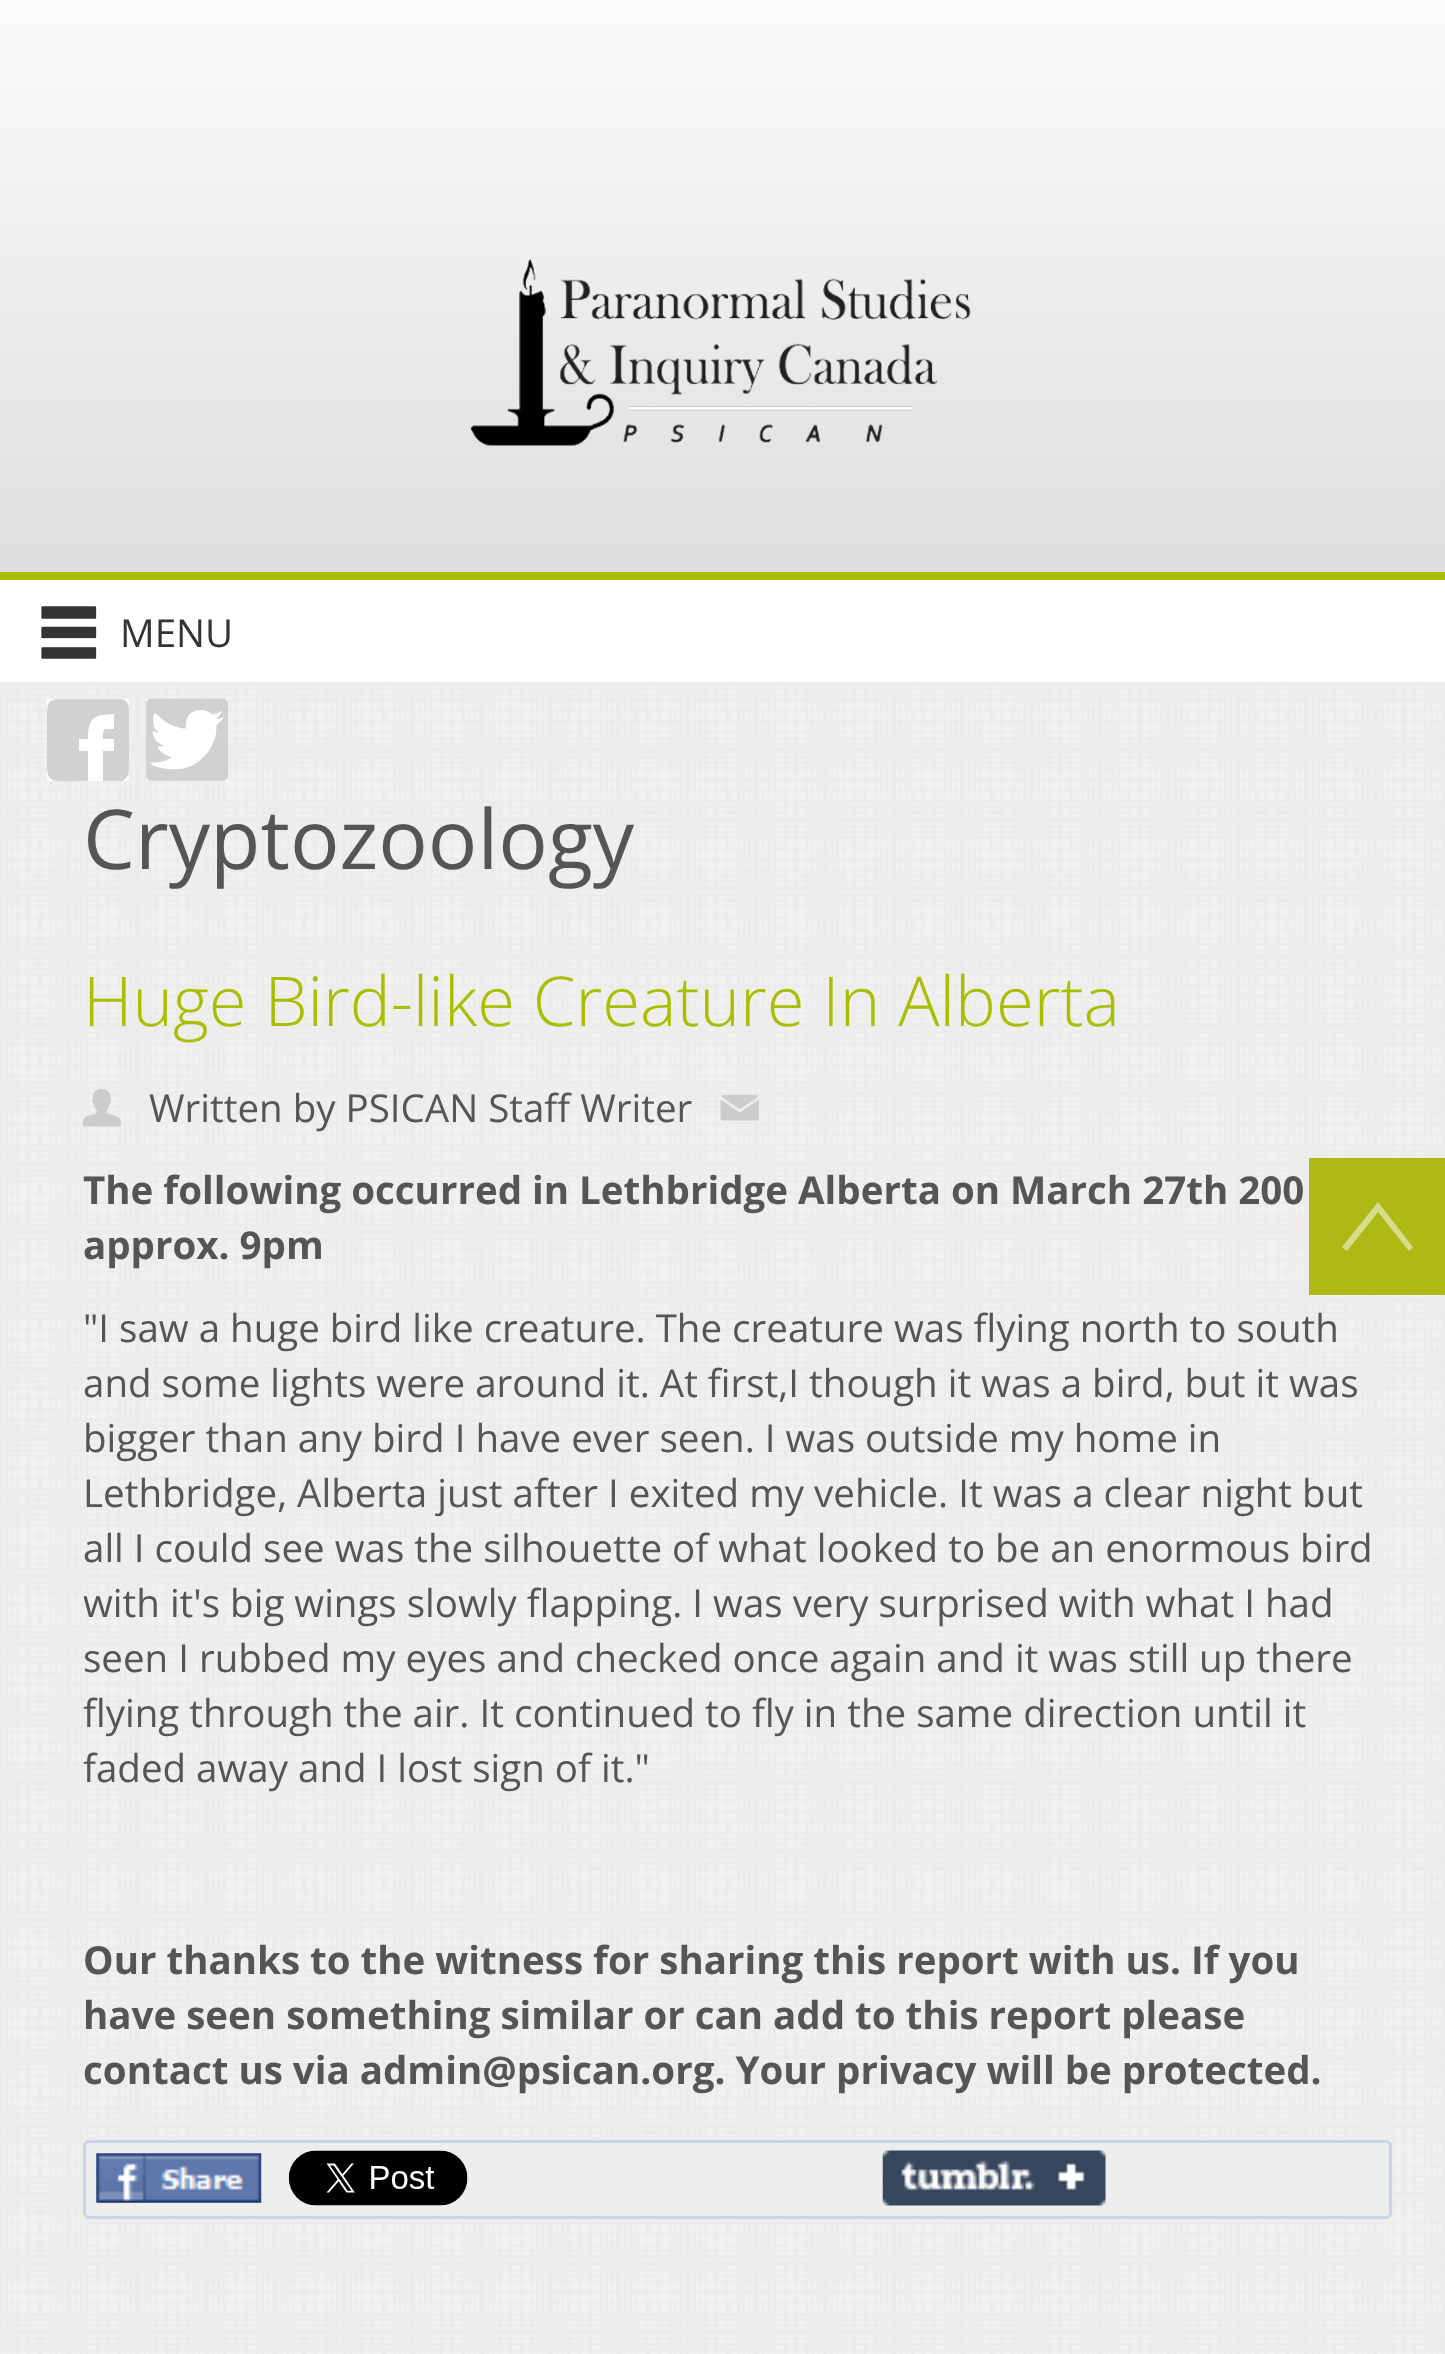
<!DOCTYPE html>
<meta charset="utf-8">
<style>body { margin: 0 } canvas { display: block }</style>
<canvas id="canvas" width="1445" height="2354"></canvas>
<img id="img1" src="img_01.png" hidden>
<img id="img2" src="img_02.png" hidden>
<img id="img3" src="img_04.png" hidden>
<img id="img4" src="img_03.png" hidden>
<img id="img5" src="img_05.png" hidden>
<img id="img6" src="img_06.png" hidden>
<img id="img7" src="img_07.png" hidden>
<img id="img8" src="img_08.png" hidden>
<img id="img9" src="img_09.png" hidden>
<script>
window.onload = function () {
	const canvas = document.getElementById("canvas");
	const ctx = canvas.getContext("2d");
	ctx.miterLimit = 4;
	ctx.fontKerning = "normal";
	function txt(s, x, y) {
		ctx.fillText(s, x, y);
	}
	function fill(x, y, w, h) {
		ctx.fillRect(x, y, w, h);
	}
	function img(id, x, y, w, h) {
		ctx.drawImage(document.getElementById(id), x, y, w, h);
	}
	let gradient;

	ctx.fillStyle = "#FFFFFF";
	fill(0, 0, 1445, 2354);
	gradient = ctx.createLinearGradient(723, 0, 723, 572);
	gradient.addColorStop(0, "#FCFCFC");
	gradient.addColorStop(1, "#DEDEDE");
	ctx.fillStyle = gradient;
	fill(0, 0, 1445, 572);
	img("img1", 470, 259, 501, 187);
	ctx.fillStyle = "#A8BF00";
	fill(0, 572, 1445, 8);
	img("img2", 41, 606, 56, 53);
	img("img3", 0, 682, 1445, 1672);
	ctx.fillStyle = "#FFFFFF";
	fill(47, 699, 82, 82);
	ctx.fillStyle = "#D1D1D1";
	ctx.beginPath();
	ctx.moveTo(119, 699);
	ctx.bezierCurveTo(131, 699, 129, 711, 129, 719);
	ctx.lineTo(129, 760);
	ctx.bezierCurveTo(129, 767, 131, 779, 121, 781);
	ctx.lineTo(103, 781);
	ctx.lineTo(103, 751);
	ctx.lineTo(114, 751);
	ctx.lineTo(114, 739);
	ctx.lineTo(103, 739);
	ctx.bezierCurveTo(103, 727, 103, 729, 114, 729);
	ctx.lineTo(114, 714);
	ctx.lineTo(102, 715);
	ctx.bezierCurveTo(89, 717, 88, 728, 88, 739);
	ctx.lineTo(79, 739);
	ctx.lineTo(79, 751);
	ctx.lineTo(88, 751);
	ctx.lineTo(88, 781);
	ctx.bezierCurveTo(42, 781, 47, 788, 47, 740);
	ctx.lineTo(47, 719);
	ctx.bezierCurveTo(47, 699, 48, 699, 68, 699);
	ctx.closePath();
	ctx.fill();
	ctx.fillStyle = "#FFFFFF";
	fill(146, 699, 82, 82);
	img("img4", 146, 698, 82, 83);
	img("img5", 83, 1089, 38, 38);
	img("img6", 720, 1094, 39, 27);
	ctx.fillStyle = "#EEEEEE";
	ctx.beginPath();
	ctx.roundRect(84.5, 2141.5, 1306, 76, 4.5);
	ctx.fill();
	ctx.strokeStyle = "#CAD4E7";
	ctx.lineWidth = 3;
	ctx.stroke();
	img("img7", 96, 2153, 166, 50);
	img("img8", 288, 2150, 180, 56);
	img("img9", 882, 2150, 224, 56);
	ctx.fillStyle = "rgba(167, 179, 0, 0.91)";
	fill(1309, 1158, 136, 137);
	ctx.fillStyle = "#D6DC8A";
	ctx.beginPath();
	ctx.moveTo(1378, 1202);
	ctx.lineTo(1413, 1247);
	ctx.lineTo(1409, 1251);
	ctx.lineTo(1378, 1212);
	ctx.lineTo(1347, 1251);
	ctx.lineTo(1342, 1247);
	ctx.closePath();
	ctx.fill();
	ctx.font = "38.5px Open Sans";
	ctx.fillStyle = "#333333";
	txt("MENU", 120, 647);
	ctx.font = "82.5px Open Sans";
	ctx.fillStyle = "#555555";
	txt("Cryptozoology", 83, 869);
	ctx.font = "300 68.75px Open Sans";
	ctx.fillStyle = "#A8BF00";
	txt("Huge Bird-like Creature In Alberta", 83, 1026);
	ctx.font = "38.5px Open Sans";
	ctx.fillStyle = "#555555";
	txt("Written by PSICAN Staff Writer", 149, 1122);
	ctx.font = "bold 38.5px Open Sans";
	txt("The following occurred in Lethbridge Alberta on March 27th 200", 83, 1204);
	txt("approx. 9pm", 83, 1259);
	ctx.font = "38.5px Open Sans";
	txt("\"I saw a huge bird like creature. The creature was flying north to south", 83, 1342);
	txt("and some lights were around it. At first,I though it was a bird, but it was", 83, 1397);
	txt("bigger than any bird I have ever seen. I was outside my home in", 83, 1452);
	txt("Lethbridge, Alberta just after I exited my vehicle. It was a clear night but", 83, 1507);
	txt("all I could see was the silhouette of what looked to be an enormous bird", 83, 1562);
	txt("with it's big wings slowly flapping. I was very surprised with what I had", 83, 1617);
	txt("seen I rubbed my eyes and checked once again and it was still up there", 83, 1672);
	txt("flying through the air. It continued to fly in the same direction until it", 83, 1727);
	txt("faded away and I lost sign of it.\"", 83, 1782);
	ctx.font = "bold 38.5px Open Sans";
	txt("Our thanks to the witness for sharing this report with us. If you", 83, 1974);
	txt("have seen something similar or can add to this report please", 83, 2029);
	txt("contact us via admin@psican.org. Your privacy will be protected.", 83, 2084);
};
</script>
